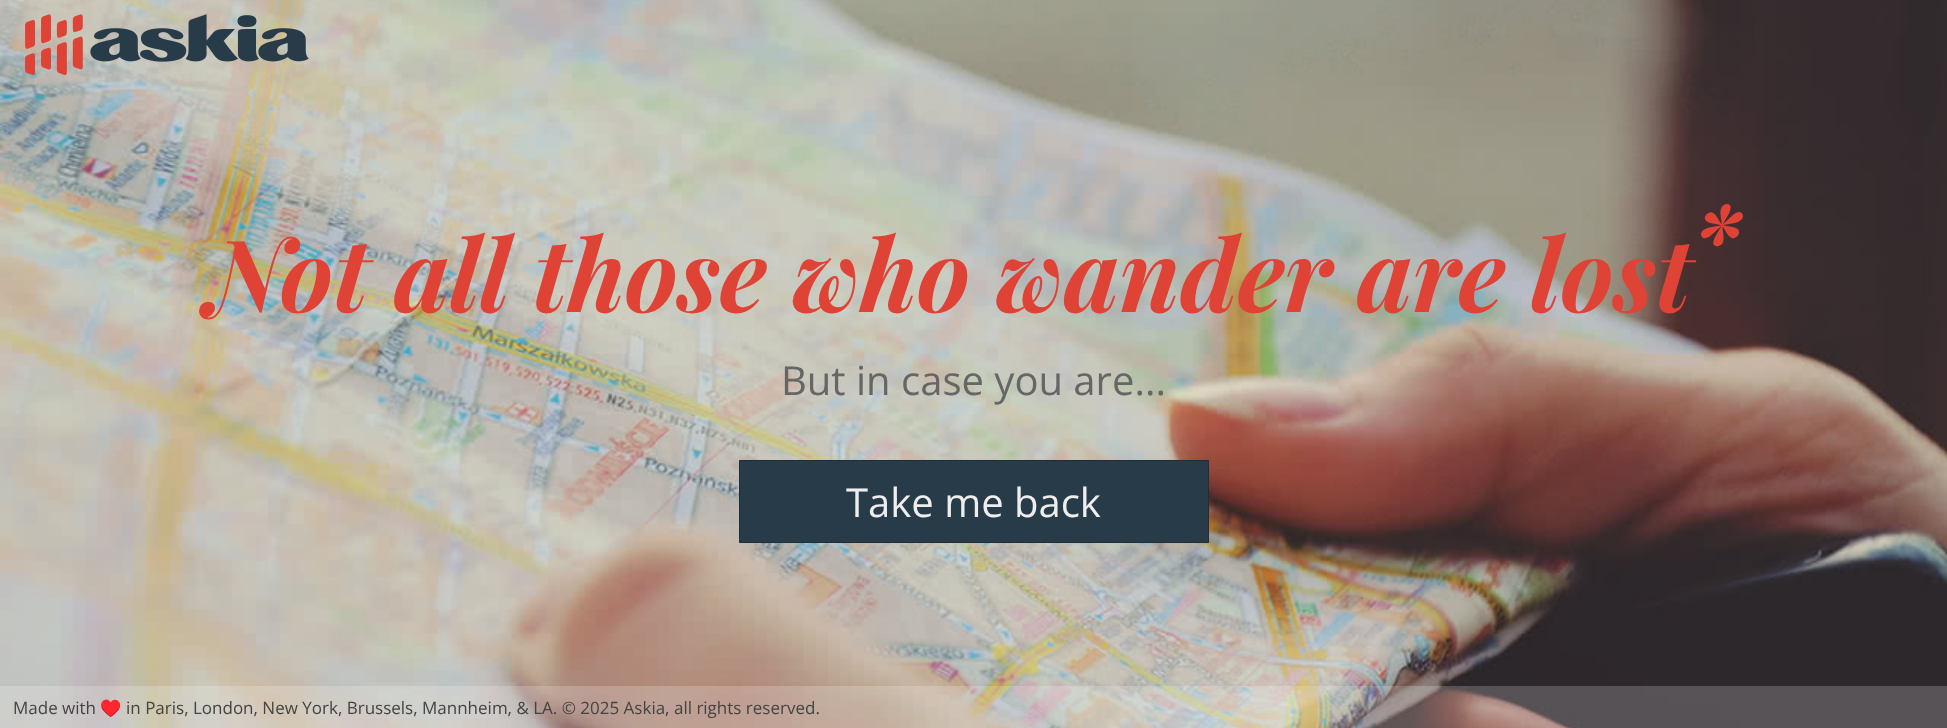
<!DOCTYPE html>
<meta charset="utf-8">
<style>body { margin: 0 } canvas { display: block }</style>
<canvas id="canvas" width="1947" height="728"></canvas>
<img id="img1" src="img_01.png" hidden>
<img id="img2" src="img_02.png" hidden>
<script>
window.onload = function () {
	const canvas = document.getElementById("canvas");
	const ctx = canvas.getContext("2d");
	ctx.miterLimit = 4;
	ctx.fontKerning = "normal";
	function txt(s, x, y) {
		ctx.fillText(s, x, y);
	}
	function fill(x, y, w, h) {
		ctx.fillRect(x, y, w, h);
	}
	function img(id, x, y, w, h) {
		ctx.drawImage(document.getElementById(id), x, y, w, h);
	}

	ctx.fillStyle = "#FFFFFF";
	fill(0, 0, 1947, 728);
	img("img1", 0, 0, 1947, 728);
	img("img2", 25, 14, 284, 61);
	ctx.fillStyle = "#283B49";
	ctx.beginPath();
	ctx.rect(739.5, 460.5, 469, 82);
	ctx.fill();
	ctx.strokeStyle = "#1F2E38";
	ctx.stroke();
	ctx.fillStyle = "rgba(255, 255, 255, 0.2)";
	fill(0, 686, 1947, 42);
	ctx.font = "italic bold 100px Playfair Display";
	ctx.fillStyle = "#DF4335";
	txt("*", 1692, 277);
	txt("Not all those who wander are lost", 207, 312);
	ctx.font = "40px Open Sans";
	ctx.fillStyle = "#666666";
	txt("But in case you are...", 781, 395);
	ctx.fillStyle = "#EEEEEE";
	txt("Take me back", 846, 517);
	ctx.font = "17px Open Sans";
	ctx.fillStyle = "#444444";
	txt("Made with", 13, 714);
	ctx.font = "17px Noto Color Emoji";
	ctx.fillStyle = "#DF4335";
	txt("♥️", 100, 714);
	ctx.font = "17px Open Sans";
	ctx.fillStyle = "#444444";
	txt("in Paris, London, New York, Brussels, Mannheim, & LA. © 2025 Askia, all rights reserved.", 126, 714);
};
</script>
